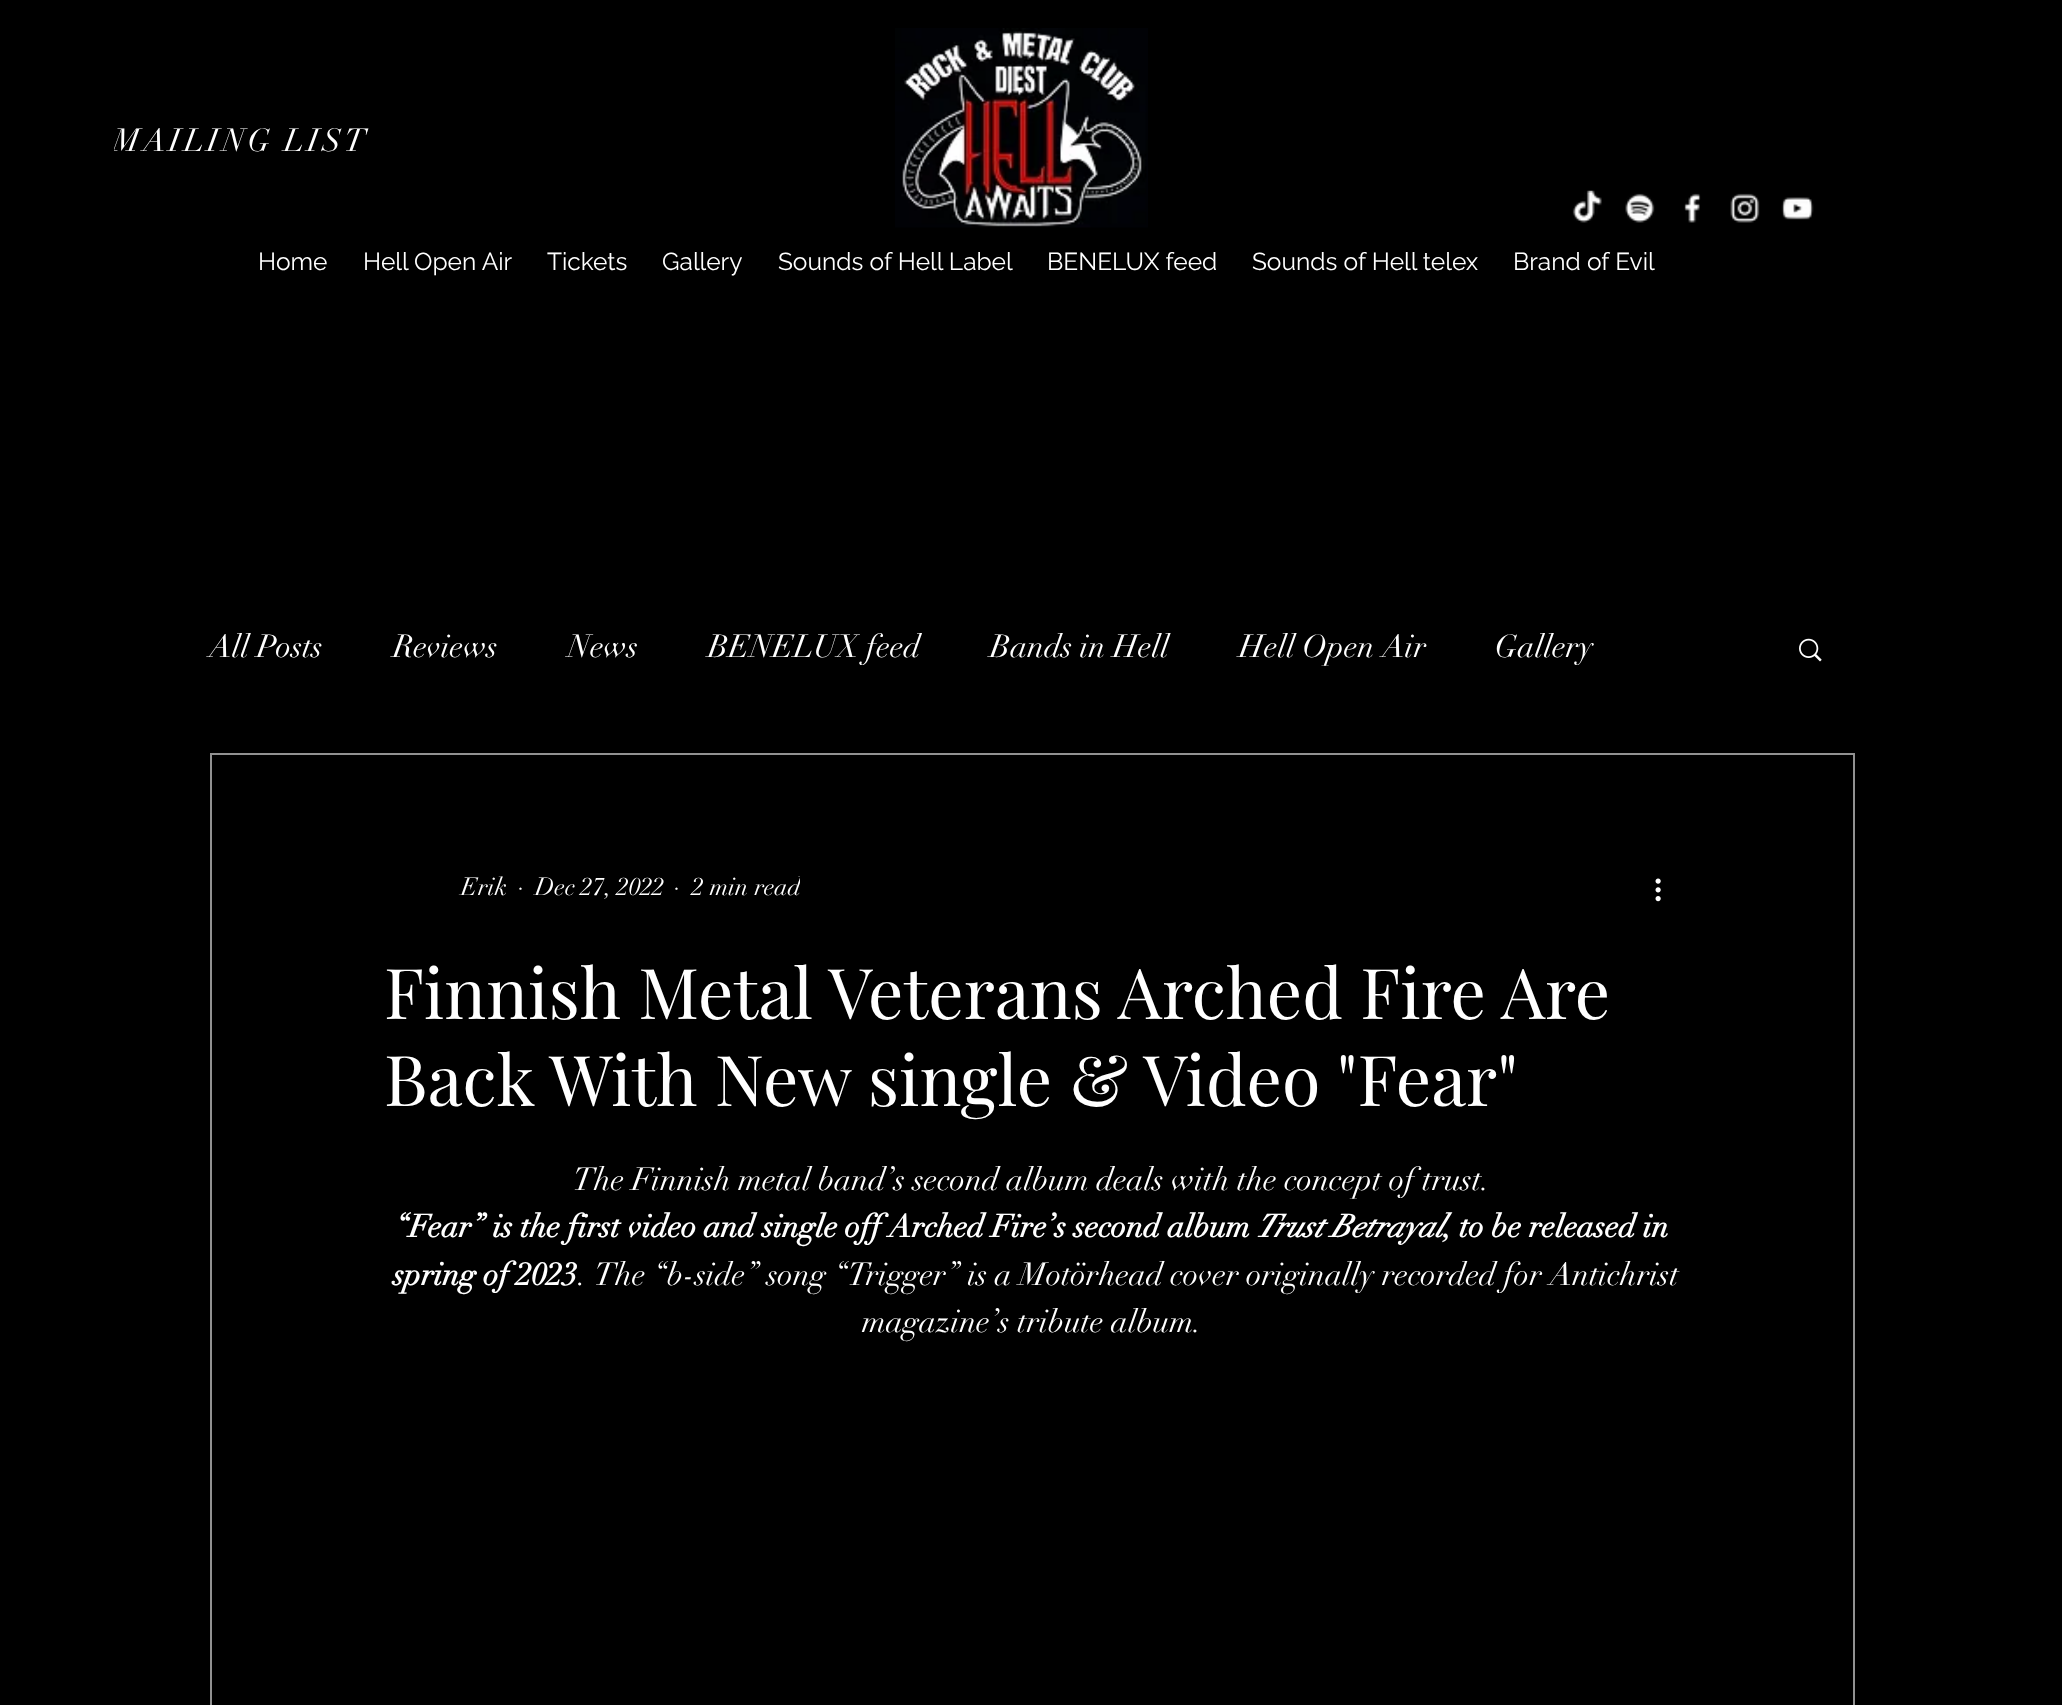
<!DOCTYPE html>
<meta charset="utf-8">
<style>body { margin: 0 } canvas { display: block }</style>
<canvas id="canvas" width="2062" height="1705"></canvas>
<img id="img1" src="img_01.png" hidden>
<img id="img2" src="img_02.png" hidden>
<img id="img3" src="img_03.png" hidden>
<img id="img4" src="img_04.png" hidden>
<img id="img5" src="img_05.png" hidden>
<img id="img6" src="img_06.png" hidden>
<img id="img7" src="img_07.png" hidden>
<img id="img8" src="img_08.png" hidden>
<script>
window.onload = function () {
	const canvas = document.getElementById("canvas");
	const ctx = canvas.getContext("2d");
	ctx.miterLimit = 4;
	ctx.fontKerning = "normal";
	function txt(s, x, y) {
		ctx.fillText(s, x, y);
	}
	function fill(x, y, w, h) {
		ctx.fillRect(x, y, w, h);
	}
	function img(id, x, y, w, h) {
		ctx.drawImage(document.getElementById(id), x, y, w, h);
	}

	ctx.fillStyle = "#000000";
	fill(0, 0, 2062, 1705);
	img("img1", 1572, 190, 30, 33);
	img("img2", 1625, 193, 30, 30);
	img("img3", 1684, 193, 17, 30);
	img("img4", 1730, 193, 30, 30);
	img("img5", 1781, 197, 33, 23);
	img("img6", 895, 28, 253, 200);
	img("img7", 1799, 638, 23, 24);
	ctx.strokeStyle = "#919191";
	ctx.lineWidth = 2;
	ctx.strokeRect(211, 754, 1643, 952);
	img("img8", 1655, 878, 6, 24);
	ctx.save();
	ctx.beginPath();
	ctx.rect(114, 121, 255, 38);
	ctx.clip();
	ctx.letterSpacing = "3.1px";
	ctx.font = "31.5px didot";
	ctx.fillStyle = "#FFFFFF";
	txt("MAILING LIST", 113, 151);
	ctx.restore();
	ctx.font = "24.5px Raleway";
	ctx.fillStyle = "#FFFFFF";
	txt("Home", 258, 270);
	txt("Hell Open Air", 363, 270);
	txt("Tickets", 547, 270);
	txt("Gallery", 662, 270);
	txt("Sounds of Hell Label", 778, 270);
	txt("BENELUX feed", 1047, 270);
	txt("Sounds of Hell telex", 1252, 270);
	txt("Brand of Evil", 1513, 270);
	ctx.font = "31.5px didot";
	txt("All Posts", 209, 657);
	txt("Reviews", 393, 657);
	txt("News", 568, 657);
	txt("BENELUX feed", 708, 657);
	txt("Bands in Hell", 990, 657);
	txt("Hell Open Air", 1239, 657);
	txt("Gallery", 1495, 657);
	ctx.font = "24.5px didot";
	txt("Erik", 461, 895);
	txt("·", 518, 895);
	txt("Dec 27, 2022", 535, 895);
	txt("·", 674, 895);
	ctx.save();
	ctx.beginPath();
	ctx.rect(663, 870, 137, 37);
	ctx.clip();
	txt("2 min read", 692, 895);
	ctx.restore();
	ctx.font = "70px Playfair Display";
	txt("Finnish Metal Veterans Arched Fire Are", 384, 1019);
	txt("Back With New single & Video \"Fear\"", 384, 1106);
	ctx.font = "31.5px didot";
	txt("The Finnish metal band’s second album deals with the concept of trust.", 573, 1190);
	ctx.font = "bold 31.5px didot";
	txt("“Fear” is the first video and single off Arched Fire’s second album", 395, 1237);
	ctx.font = "italic bold 31.5px didot";
	txt("Trust Betrayal", 1256, 1237);
	ctx.font = "bold 31.5px didot";
	txt(", to be released in", 1443, 1237);
	txt("spring of 2023", 393, 1285);
	ctx.font = "31.5px didot";
	txt(". The “b-side” song “Trigger” is a Motörhead cover originally recorded for Antichrist", 578, 1285);
	txt("magazine’s tribute album.", 862, 1332);
};
</script>
